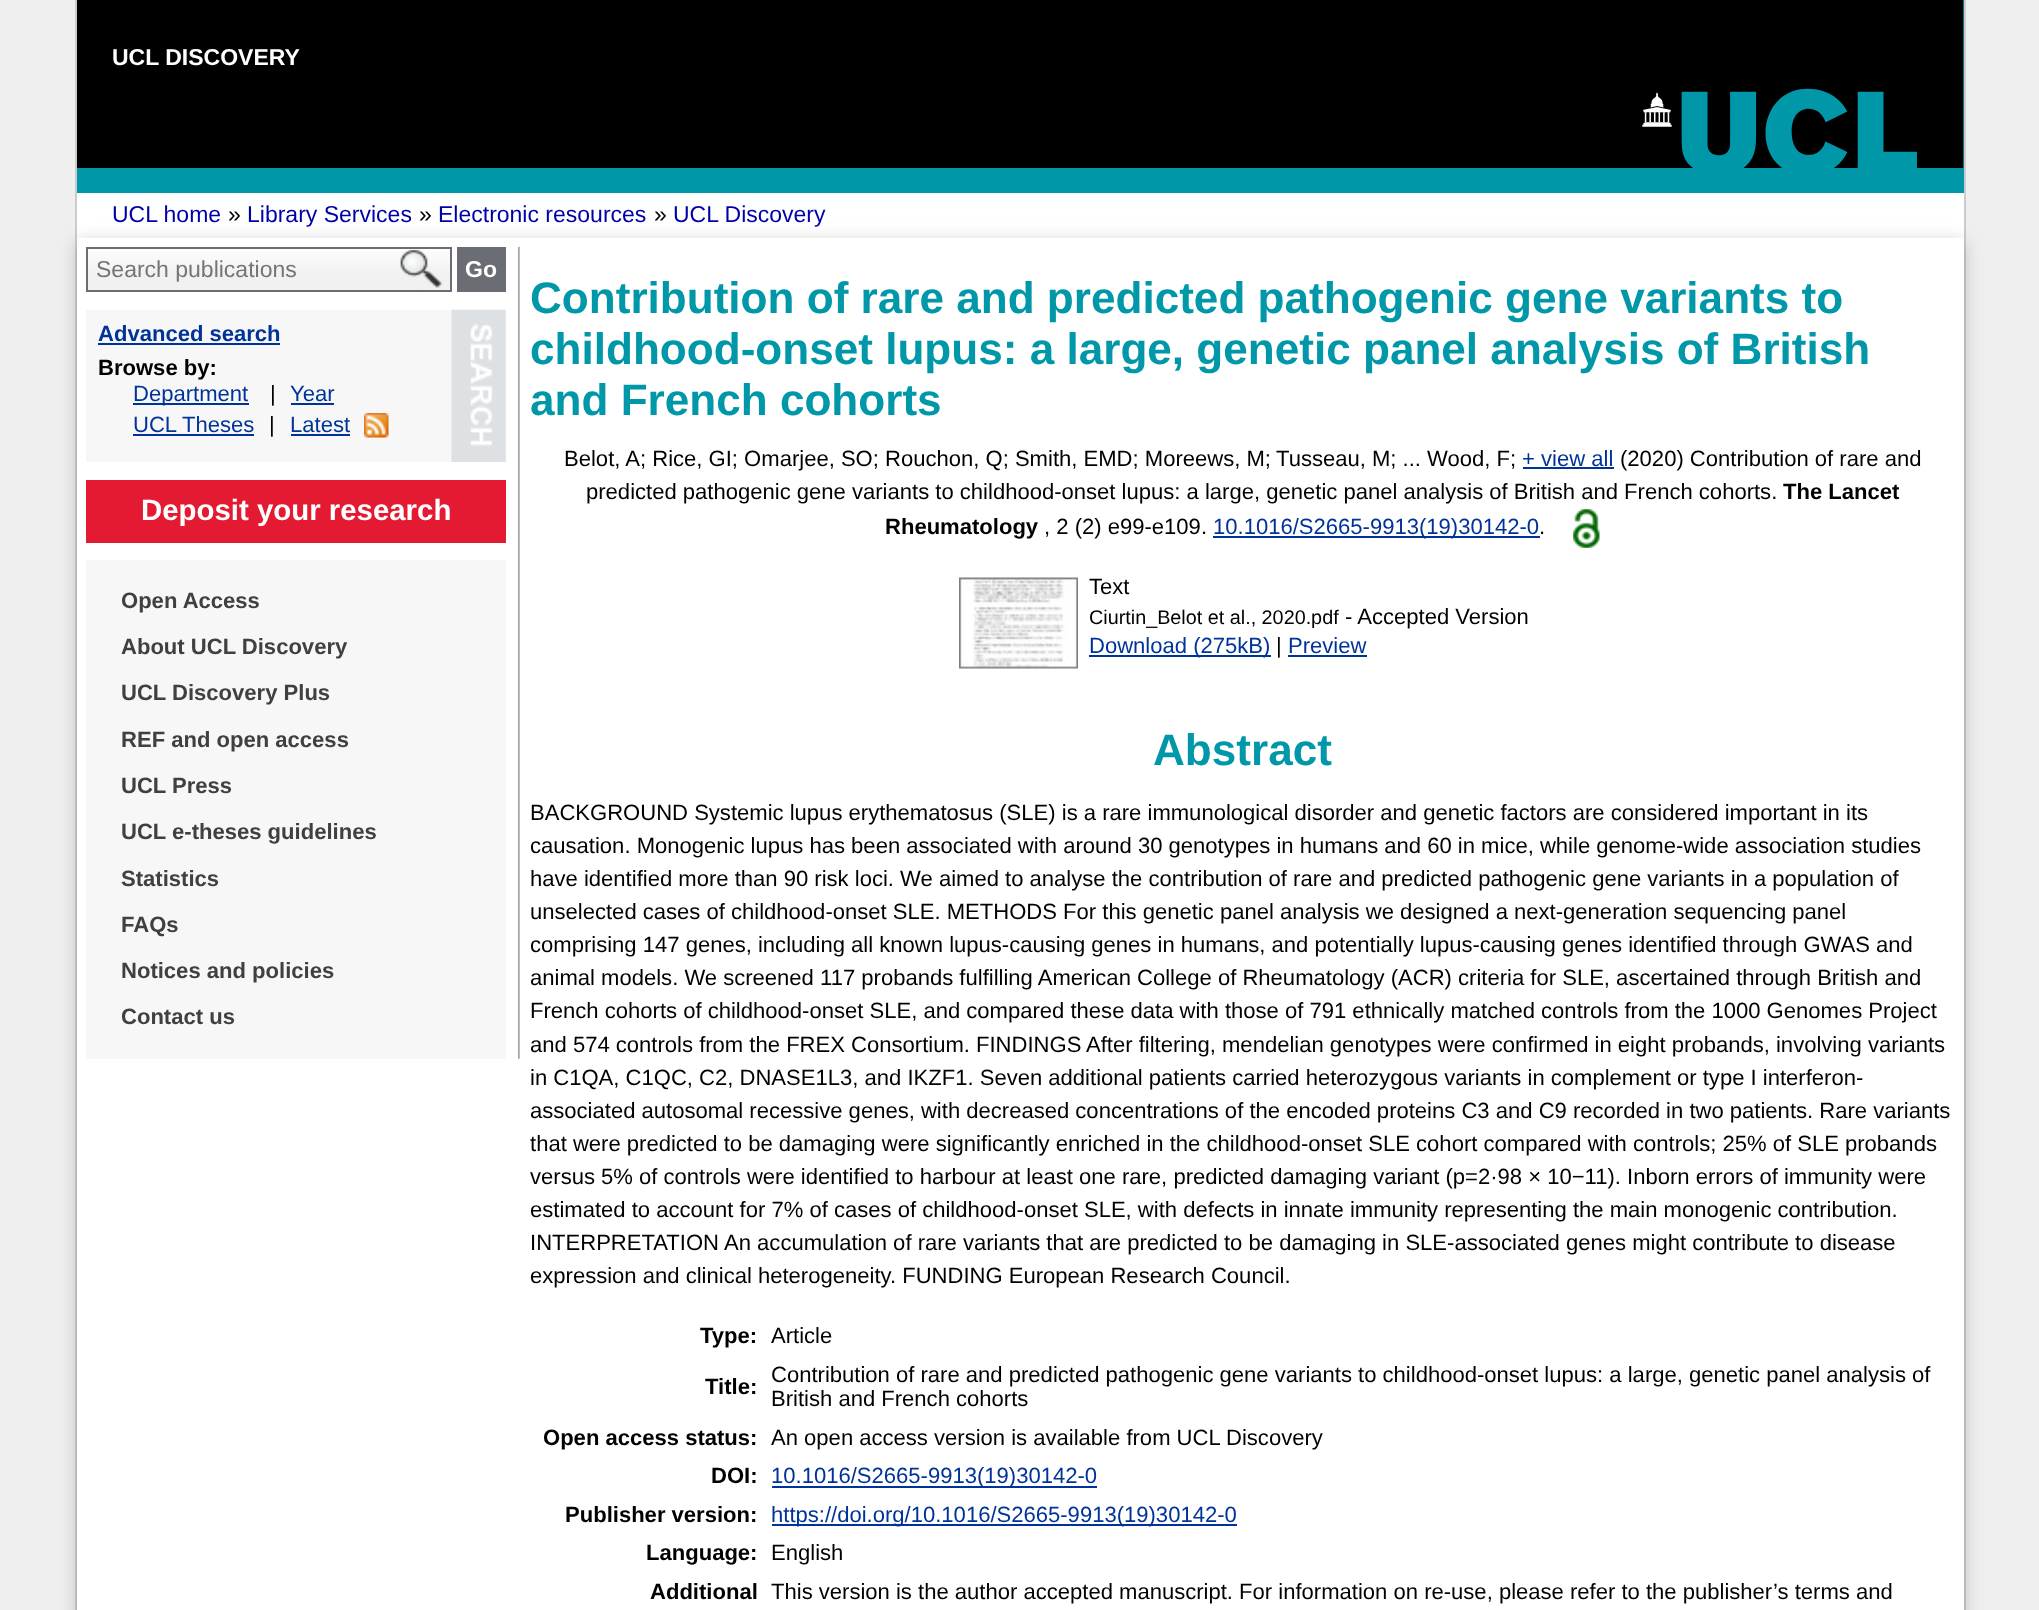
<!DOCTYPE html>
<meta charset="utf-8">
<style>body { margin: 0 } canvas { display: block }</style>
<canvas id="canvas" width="2039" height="1610"></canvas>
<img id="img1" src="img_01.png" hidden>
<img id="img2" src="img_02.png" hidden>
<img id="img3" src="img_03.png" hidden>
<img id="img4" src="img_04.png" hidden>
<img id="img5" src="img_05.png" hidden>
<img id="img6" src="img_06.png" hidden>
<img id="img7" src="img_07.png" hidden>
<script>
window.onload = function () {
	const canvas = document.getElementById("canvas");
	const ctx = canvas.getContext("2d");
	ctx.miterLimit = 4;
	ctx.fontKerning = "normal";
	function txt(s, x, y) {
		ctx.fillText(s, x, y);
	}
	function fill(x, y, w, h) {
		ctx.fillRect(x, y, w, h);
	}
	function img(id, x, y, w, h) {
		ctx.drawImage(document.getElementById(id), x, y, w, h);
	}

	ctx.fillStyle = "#EFEFEF";
	fill(0, 0, 2039, 1610);
	ctx.fillStyle = "#CCCCCC";
	fill(1964, 0, 2, 1610);
	fill(75, 0, 2, 1610);
	ctx.fillStyle = "#0097A9";
	fill(77, 0, 1887, 193);
	img("img1", 77, 0, 1887, 168);
	ctx.fillStyle = "#FFFFFF";
	fill(77, 193, 1887, 45);
	ctx.fillStyle = "rgba(80, 80, 80, 0.3)";
	ctx.filter = "blur(9px)";
	ctx.beginPath();
	ctx.rect(77, 242, 1887, 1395);
	ctx.fill();
	ctx.filter = "none";
	ctx.fillStyle = "#FFFFFF";
	fill(77, 238, 1887, 1372);
	img("img2", 518, 246, 2, 813);
	img("img3", 88, 249, 362, 41);
	ctx.strokeStyle = "#6A6D73";
	ctx.lineWidth = 2;
	ctx.strokeRect(87, 248, 364, 43);
	ctx.fillStyle = "#6A6D73";
	fill(457, 247, 49, 45);
	ctx.fillStyle = "#F7F7F7";
	fill(86, 310, 420, 152);
	img("img4", 451, 309, 55, 153);
	ctx.fillStyle = "#003399";
	fill(98, 343, 182, 2);
	fill(133, 403, 116, 2);
	fill(291, 403, 43, 2);
	fill(133, 434, 121, 2);
	fill(291, 434, 59, 2);
	img("img5", 364, 413, 25, 25);
	ctx.fillStyle = "#E31A32";
	fill(86, 480, 420, 63);
	ctx.fillStyle = "#F7F7F7";
	fill(86, 560, 420, 499);
	ctx.fillStyle = "#003399";
	fill(1523, 467, 91, 2);
	fill(1213, 536, 327, 2);
	img("img6", 1573, 509, 27, 39);
	img("img7", 959, 577, 119, 92);
	fill(1089, 655, 182, 2);
	fill(1288, 655, 79, 2);
	fill(772, 1486, 325, 2);
	fill(772, 1524, 465, 2);
	ctx.font = "bold 23px Liberation Sans";
	ctx.fillStyle = "#FFFFFF";
	txt("UCL DISCOVERY", 112, 65);
	ctx.font = "23px Liberation Sans";
	ctx.fillStyle = "#0000AA";
	txt("UCL home", 112, 222);
	ctx.fillStyle = "#000000";
	txt("»", 228, 222);
	ctx.fillStyle = "#0000AA";
	txt("Library Services", 247, 222);
	ctx.fillStyle = "#000000";
	txt("»", 419, 222);
	ctx.fillStyle = "#0000AA";
	txt("Electronic resources", 438, 222);
	ctx.fillStyle = "#000000";
	txt("»", 654, 222);
	ctx.fillStyle = "#0000AA";
	txt("UCL Discovery", 673, 222);
	ctx.fillStyle = "#757575";
	txt("Search publications", 96, 277);
	ctx.font = "bold 23px Liberation Sans";
	ctx.fillStyle = "#FFFFFF";
	txt("Go", 465, 277);
	ctx.font = "bold 22.05px Liberation Sans";
	ctx.fillStyle = "#003399";
	txt("Advanced search", 98, 341);
	ctx.fillStyle = "#000000";
	txt("Browse by:", 98, 375);
	ctx.font = "22.05px Liberation Sans";
	ctx.fillStyle = "#003399";
	txt("Department", 133, 401);
	ctx.fillStyle = "#000000";
	txt("|", 270, 401);
	ctx.fillStyle = "#003399";
	txt("Year", 290, 401);
	txt("UCL Theses", 133, 432);
	ctx.fillStyle = "#000000";
	txt("|", 269, 432);
	ctx.fillStyle = "#003399";
	txt("Latest", 290, 432);
	ctx.font = "bold 29.4px Liberation Sans";
	ctx.fillStyle = "#FFFFFF";
	txt("Deposit your research", 141, 520);
	ctx.font = "bold 22.05px Liberation Sans";
	ctx.fillStyle = "#404040";
	txt("Open Access", 121, 608);
	txt("About UCL Discovery", 121, 654);
	txt("UCL Discovery Plus", 121, 700);
	txt("REF and open access", 121, 747);
	txt("UCL Press", 121, 793);
	txt("UCL e-theses guidelines", 121, 839);
	txt("Statistics", 121, 886);
	txt("FAQs", 121, 932);
	txt("Notices and policies", 121, 978);
	txt("Contact us", 121, 1024);
	ctx.font = "bold 44.1px Liberation Sans";
	ctx.fillStyle = "#0097A9";
	txt("Contribution of rare and predicted pathogenic gene variants to", 530, 313);
	txt("childhood-onset lupus: a large, genetic panel analysis of British", 530, 364);
	txt("and French cohorts", 530, 415);
	ctx.font = "22.05px Liberation Sans";
	ctx.fillStyle = "#000000";
	txt("Belot, A; Rice, GI; Omarjee, SO; Rouchon, Q; Smith, EMD; Moreews, M;", 564, 466);
	txt("Tusseau, M; ... Wood, F;", 1276, 466);
	ctx.fillStyle = "#003399";
	txt("+ view all", 1522, 466);
	ctx.fillStyle = "#000000";
	txt("(2020) Contribution of rare and", 1620, 466);
	txt("predicted pathogenic gene variants to childhood-onset lupus: a large, genetic panel analysis of British and French cohorts.", 586, 499);
	ctx.font = "bold 22.05px Liberation Sans";
	txt("The Lancet", 1783, 499);
	txt("Rheumatology", 885, 534);
	ctx.font = "22.05px Liberation Sans";
	txt(", 2 (2) e99-e109.", 1044, 534);
	ctx.fillStyle = "#003399";
	txt("10.1016/S2665-9913(19)30142-0", 1213, 534);
	ctx.fillStyle = "#000000";
	txt(".", 1539, 534);
	txt("Text", 1089, 594);
	ctx.font = "19.8px Liberation Sans";
	txt("Ciurtin_Belot et al., 2020.pdf", 1089, 624);
	ctx.font = "22.05px Liberation Sans";
	txt("- Accepted Version", 1345, 624);
	ctx.fillStyle = "#003399";
	txt("Download (275kB)", 1089, 653);
	ctx.fillStyle = "#000000";
	txt("|", 1276, 653);
	ctx.fillStyle = "#003399";
	txt("Preview", 1288, 653);
	ctx.font = "bold 44.1px Liberation Sans";
	ctx.fillStyle = "#0097A9";
	txt("Abstract", 1153, 765);
	ctx.font = "22.05px Liberation Sans";
	ctx.fillStyle = "#000000";
	txt("BACKGROUND Systemic lupus erythematosus (SLE) is a rare immunological disorder and genetic factors are considered important in its", 530, 820);
	txt("causation. Monogenic lupus has been associated with around 30 genotypes in humans and 60 in mice, while genome-wide association studies", 530, 853);
	txt("have identified more than 90 risk loci. We aimed to analyse the contribution of rare and predicted pathogenic gene variants in a population of", 530, 886);
	txt("unselected cases of childhood-onset SLE. METHODS For this genetic panel analysis we designed a next-generation sequencing panel", 530, 919);
	txt("comprising 147 genes, including all known lupus-causing genes in humans, and potentially lupus-causing genes identified through GWAS and", 530, 952);
	txt("animal models. We screened 117 probands fulfilling American College of Rheumatology (ACR) criteria for SLE, ascertained through British and", 530, 985);
	txt("French cohorts of childhood-onset SLE, and compared these data with those of 791 ethnically matched controls from the 1000 Genomes Project", 530, 1018);
	txt("and 574 controls from the FREX Consortium. FINDINGS", 530, 1052);
	txt("After filtering, mendelian genotypes were confirmed in eight probands, involving variants", 1086, 1052);
	txt("in C1QA, C1QC, C2, DNASE1L3, and IKZF1. Seven additional patients carried heterozygous variants in complement or type I interferon-", 530, 1085);
	txt("associated autosomal recessive genes, with decreased concentrations of the encoded proteins C3 and C9 recorded in two patients. Rare variants", 530, 1118);
	txt("that were predicted to be damaging were significantly enriched in the childhood-onset SLE cohort compared with controls; 25% of SLE probands", 530, 1151);
	txt("versus 5% of controls were identified to harbour at least one rare, predicted damaging variant (p=2·98 × 10−11). Inborn errors of immunity were", 530, 1184);
	txt("estimated to account for 7% of cases of childhood-onset SLE, with defects in innate immunity representing the main monogenic contribution.", 530, 1217);
	txt("INTERPRETATION", 530, 1250);
	txt("An accumulation of rare variants that are predicted to be damaging in SLE-associated genes might contribute to disease", 724, 1250);
	txt("expression and clinical heterogeneity. FUNDING European Research Council.", 530, 1283);
	ctx.font = "bold 22.05px Liberation Sans";
	txt("Type:", 700, 1343);
	ctx.font = "22.05px Liberation Sans";
	txt("Article", 771, 1343);
	ctx.font = "bold 22.05px Liberation Sans";
	txt("Title:", 705, 1394);
	ctx.font = "22.05px Liberation Sans";
	txt("Contribution of rare and predicted pathogenic gene variants to childhood-onset lupus: a large, genetic panel analysis of", 771, 1382);
	txt("British and French cohorts", 771, 1406);
	ctx.font = "bold 22.05px Liberation Sans";
	txt("Open access status:", 543, 1445);
	ctx.font = "22.05px Liberation Sans";
	txt("An open access version is available from UCL Discovery", 771, 1445);
	ctx.font = "bold 22.05px Liberation Sans";
	txt("DOI:", 711, 1483);
	ctx.font = "22.05px Liberation Sans";
	ctx.fillStyle = "#003399";
	txt("10.1016/S2665-9913(19)30142-0", 771, 1483);
	ctx.font = "bold 22.05px Liberation Sans";
	ctx.fillStyle = "#000000";
	txt("Publisher version:", 565, 1522);
	ctx.font = "22.05px Liberation Sans";
	ctx.fillStyle = "#003399";
	txt("https://doi.org/10.1016/S2665-9913(19)30142-0", 771, 1522);
	ctx.font = "bold 22.05px Liberation Sans";
	ctx.fillStyle = "#000000";
	txt("Language:", 646, 1560);
	ctx.font = "22.05px Liberation Sans";
	txt("English", 771, 1560);
	ctx.font = "bold 22.05px Liberation Sans";
	txt("Additional", 650, 1599);
	ctx.font = "22.05px Liberation Sans";
	txt("This version is the author accepted manuscript. For information on re-use, please refer to the publisher’s terms and", 771, 1599);
};
</script>
